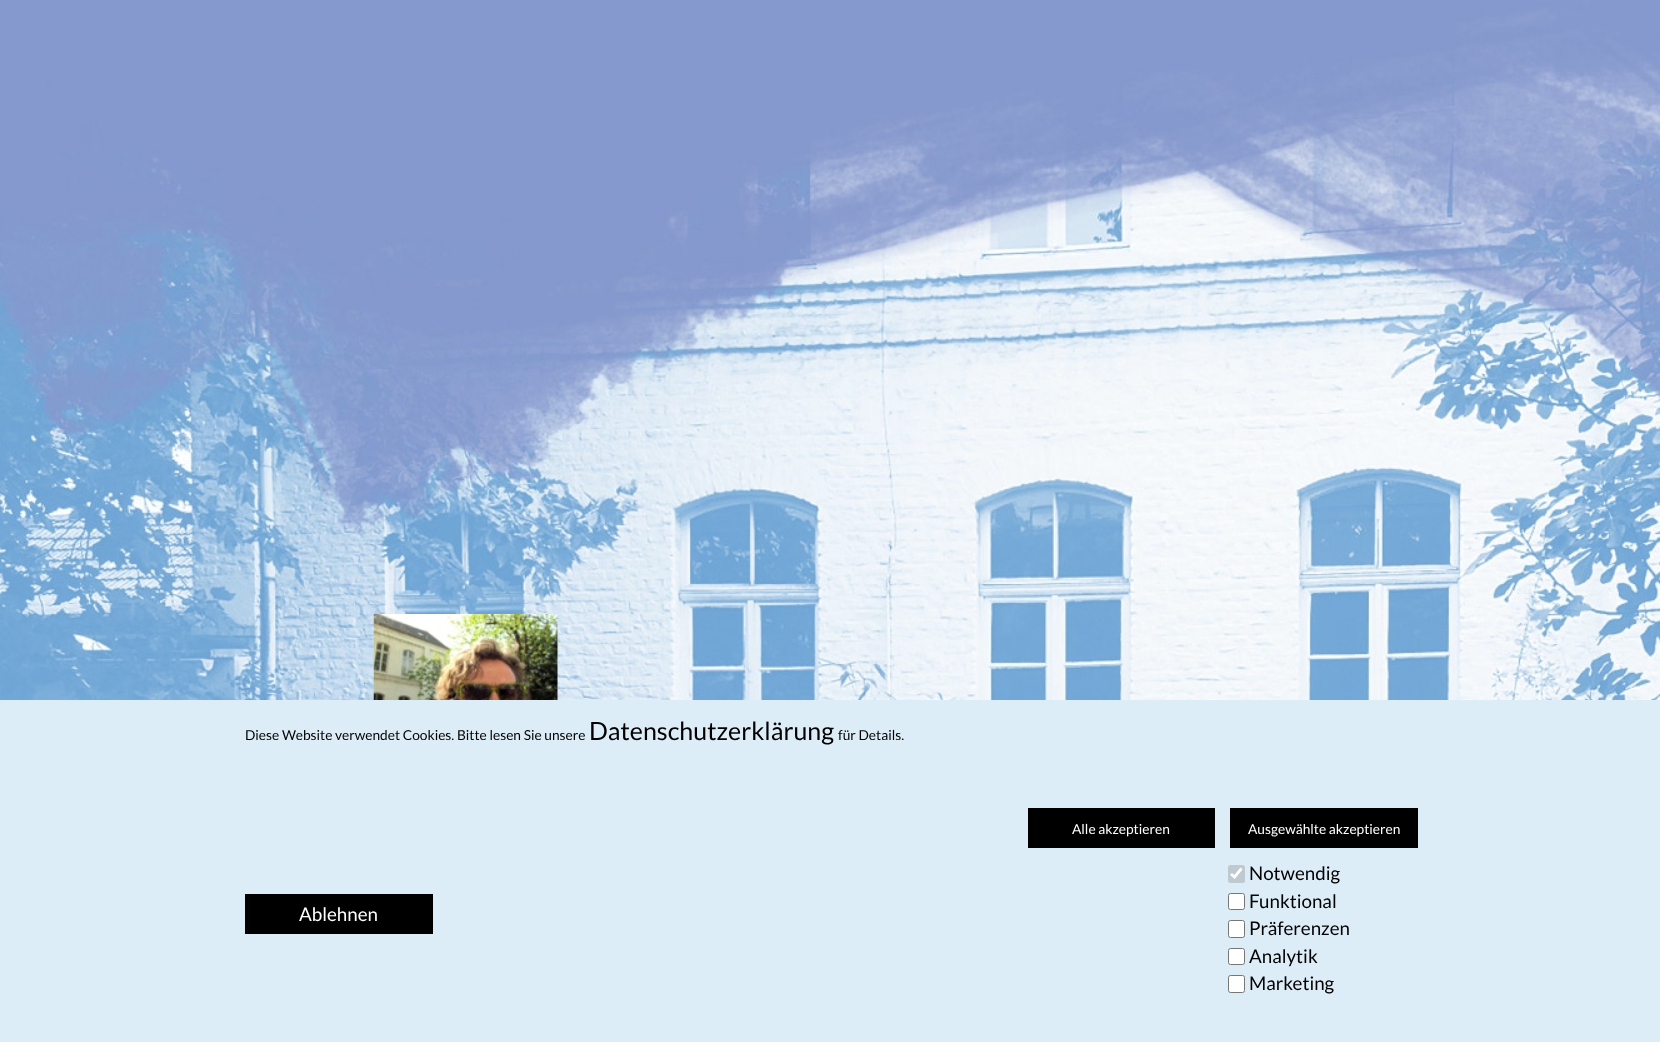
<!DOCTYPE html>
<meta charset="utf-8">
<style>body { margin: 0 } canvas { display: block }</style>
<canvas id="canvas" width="1660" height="1042"></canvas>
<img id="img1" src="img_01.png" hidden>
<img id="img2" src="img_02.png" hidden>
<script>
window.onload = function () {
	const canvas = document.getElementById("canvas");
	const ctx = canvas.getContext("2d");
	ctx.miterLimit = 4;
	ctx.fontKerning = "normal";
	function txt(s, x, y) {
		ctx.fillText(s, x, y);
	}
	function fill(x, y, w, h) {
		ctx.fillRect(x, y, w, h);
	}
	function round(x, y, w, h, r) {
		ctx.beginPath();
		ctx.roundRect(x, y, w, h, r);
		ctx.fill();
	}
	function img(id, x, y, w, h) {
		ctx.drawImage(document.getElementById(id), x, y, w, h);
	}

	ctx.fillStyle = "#FFFFFF";
	fill(0, 0, 1660, 1042);
	img("img1", 0, 0, 1660, 700);
	img("img2", 373, 614, 185, 86);
	ctx.fillStyle = "#DDEDF7";
	fill(0, 700, 1660, 342);
	ctx.fillStyle = "#000000";
	fill(1028, 808, 187, 40);
	fill(1230, 808, 188, 40);
	ctx.fillStyle = "#BEC9D0";
	round(1228, 865, 17, 18, 2.5);
	ctx.beginPath();
	ctx.moveTo(1231, 874);
	ctx.lineTo(1234.5, 877);
	ctx.lineTo(1241.5, 868.5);
	ctx.strokeStyle = "#FFFFFF";
	ctx.lineWidth = 2.8;
	ctx.stroke();
	ctx.fillStyle = "#000000";
	fill(245, 894, 188, 40);
	ctx.fillStyle = "#FFFFFF";
	ctx.beginPath();
	ctx.roundRect(1228.5, 893.5, 16, 16, 2);
	ctx.fill();
	ctx.strokeStyle = "#767676";
	ctx.lineWidth = 1;
	ctx.stroke();
	ctx.beginPath();
	ctx.roundRect(1228.5, 920.5, 16, 17, 2);
	ctx.fill();
	ctx.stroke();
	ctx.beginPath();
	ctx.roundRect(1228.5, 948.5, 16, 16, 2);
	ctx.fill();
	ctx.stroke();
	ctx.beginPath();
	ctx.roundRect(1228.5, 975.5, 16, 17, 2);
	ctx.fill();
	ctx.stroke();
	ctx.font = "13.75px Lato";
	ctx.fillStyle = "#000000";
	txt("Diese Website verwendet Cookies. Bitte lesen Sie unsere", 245, 740);
	ctx.font = "25px Lato";
	txt("Datenschutzerklärung", 589, 740);
	ctx.font = "13.75px Lato";
	txt("für Details.", 838, 740);
	ctx.fillStyle = "#FFFFFF";
	txt("Alle akzeptieren", 1072, 834);
	txt("Ausgewählte akzeptieren", 1248, 834);
	ctx.font = "18.75px Lato";
	ctx.fillStyle = "#000000";
	txt("Notwendig", 1249, 880);
	ctx.fillStyle = "#FFFFFF";
	txt("Ablehnen", 299, 921);
	ctx.fillStyle = "#000000";
	txt("Funktional", 1249, 908);
	txt("Präferenzen", 1249, 935);
	txt("Analytik", 1249, 963);
	txt("Marketing", 1249, 990);
};
</script>
